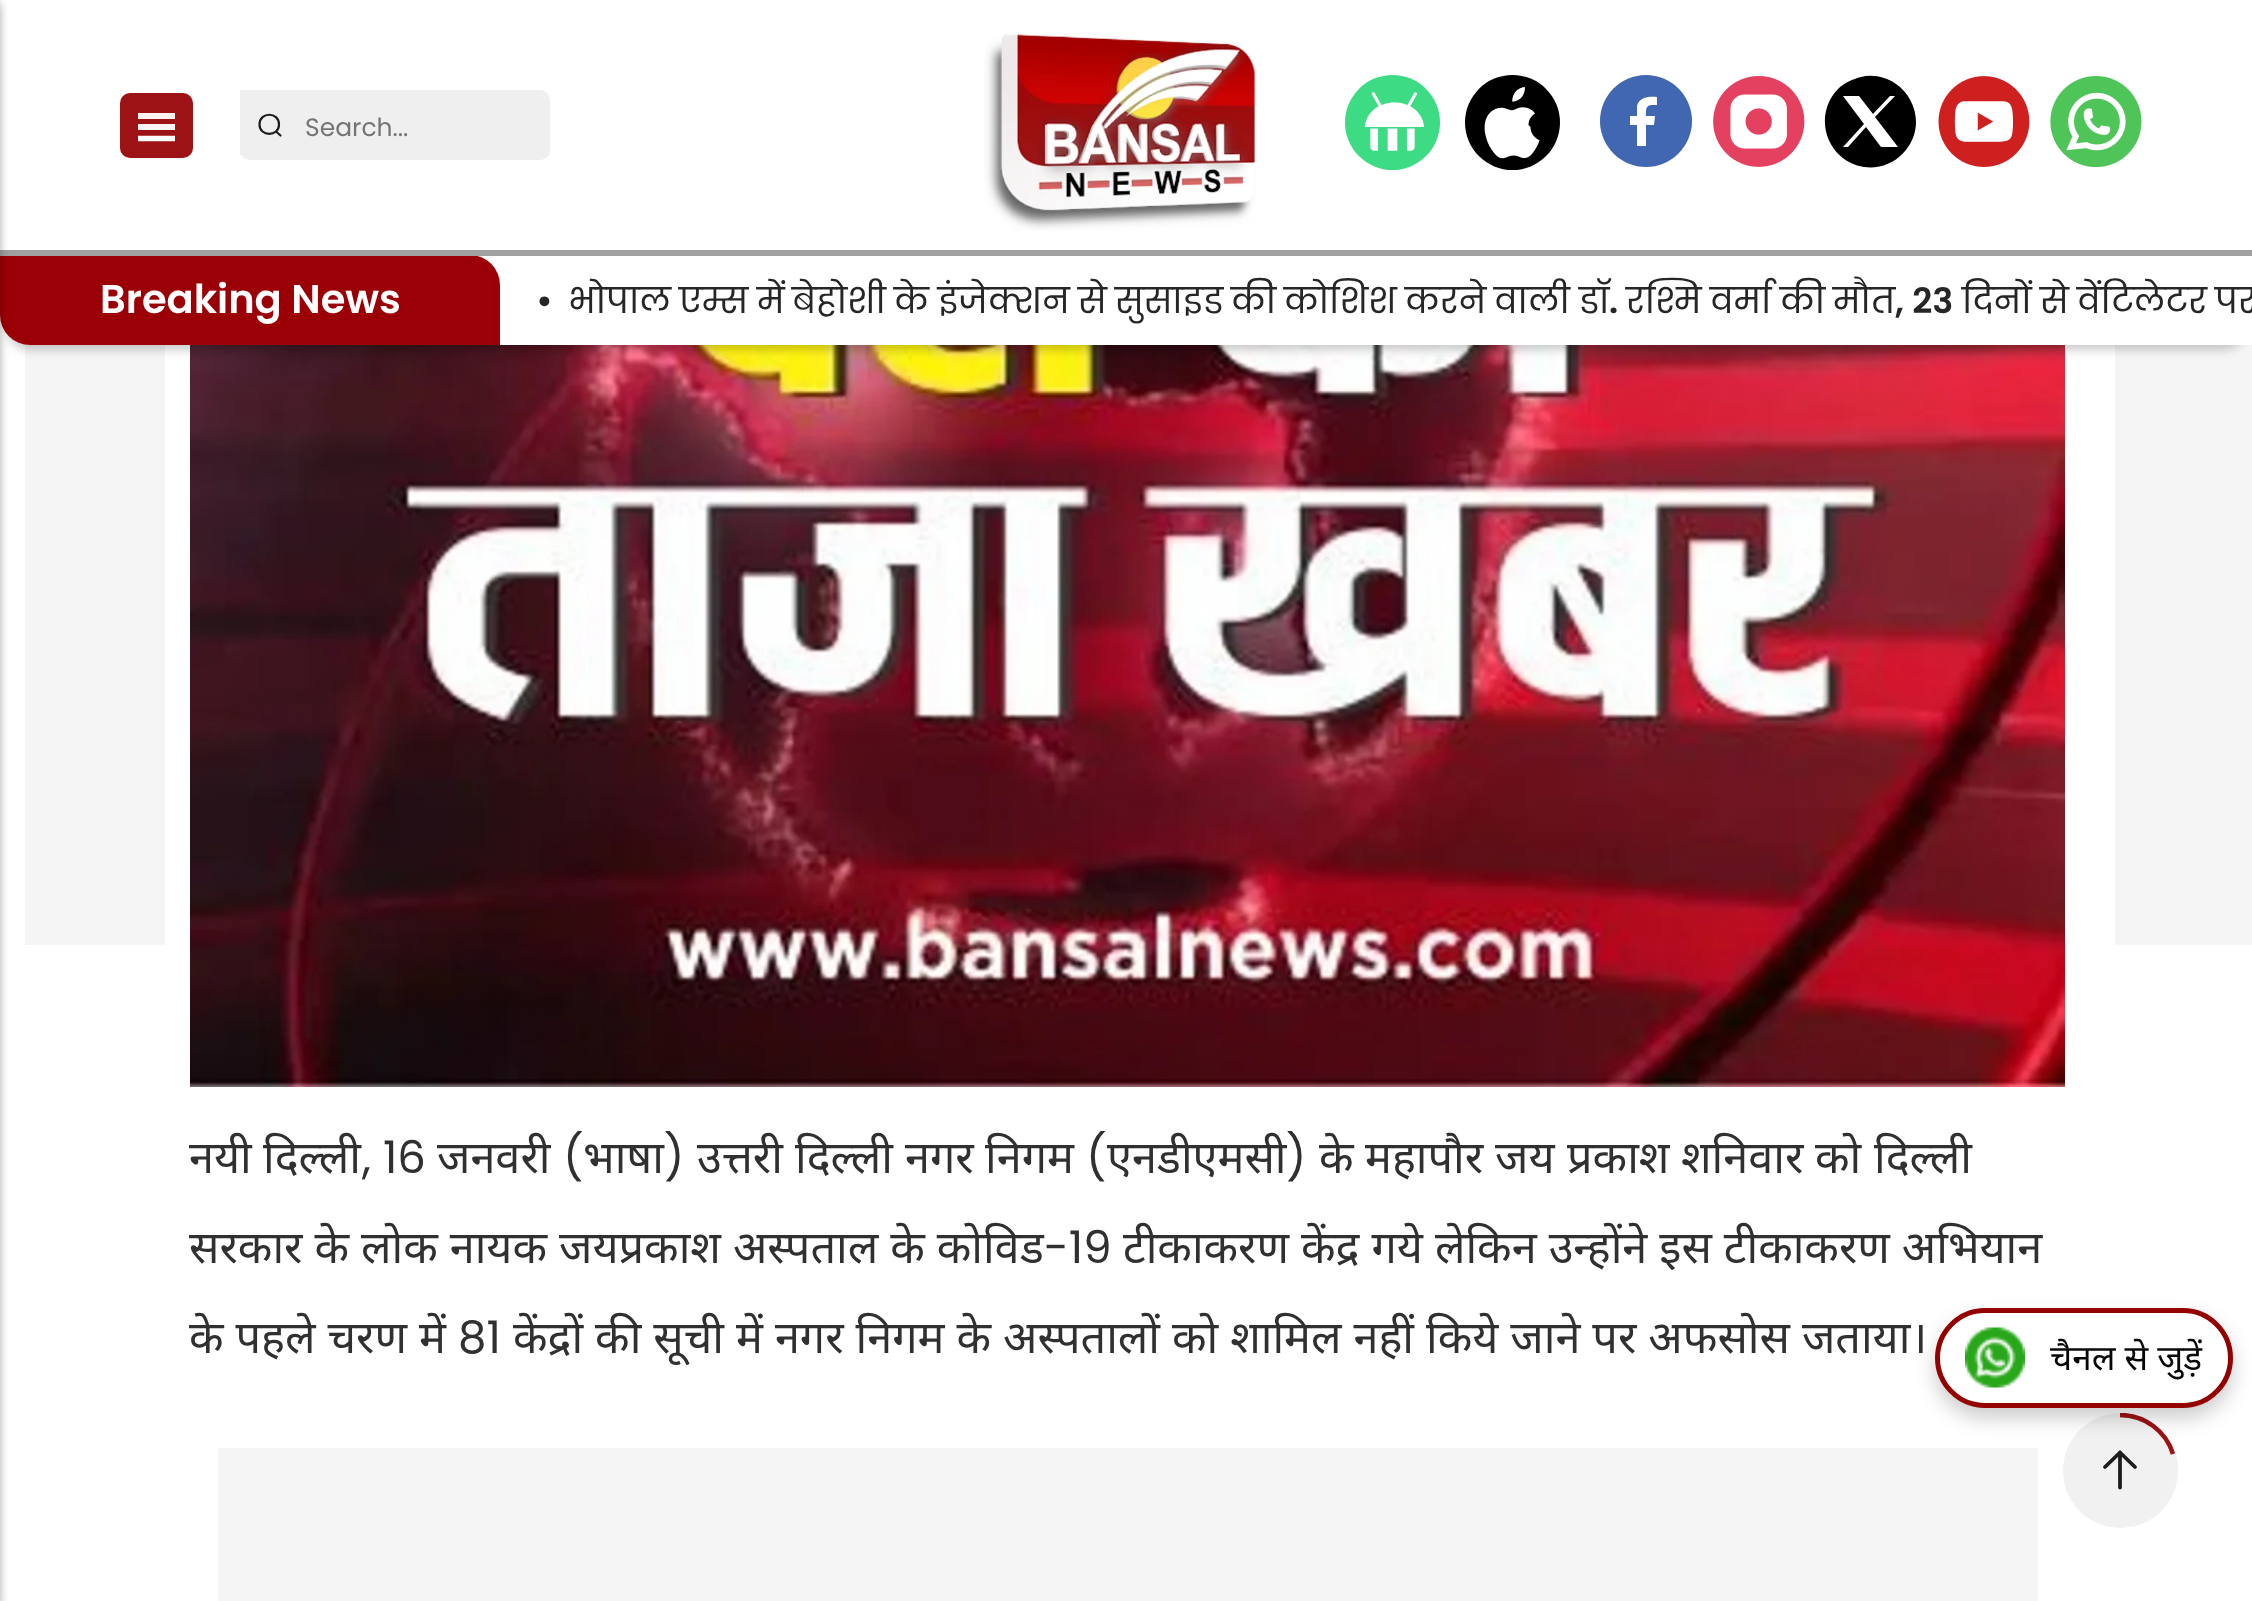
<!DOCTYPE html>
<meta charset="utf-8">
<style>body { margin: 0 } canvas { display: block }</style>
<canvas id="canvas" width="2252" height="1601"></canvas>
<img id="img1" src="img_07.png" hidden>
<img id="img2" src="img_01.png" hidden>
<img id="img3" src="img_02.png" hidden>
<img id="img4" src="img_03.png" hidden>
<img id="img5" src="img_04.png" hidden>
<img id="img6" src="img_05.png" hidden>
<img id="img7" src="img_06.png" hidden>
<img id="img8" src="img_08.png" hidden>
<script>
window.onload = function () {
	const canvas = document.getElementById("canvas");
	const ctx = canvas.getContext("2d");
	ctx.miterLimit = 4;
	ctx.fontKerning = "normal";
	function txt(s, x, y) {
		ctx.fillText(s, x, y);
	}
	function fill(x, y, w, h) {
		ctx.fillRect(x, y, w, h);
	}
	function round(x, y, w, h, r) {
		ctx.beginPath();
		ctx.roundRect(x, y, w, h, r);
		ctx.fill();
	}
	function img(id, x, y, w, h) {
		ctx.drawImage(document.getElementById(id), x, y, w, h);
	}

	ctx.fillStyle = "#FFFFFF";
	fill(0, 0, 2252, 1601);
	ctx.fillStyle = "#F5F5F5";
	fill(25, 344, 140, 601);
	fill(2115, 345, 137, 600);
	img("img1", 190, 345, 1875, 742);
	ctx.fillStyle = "rgba(0, 0, 0, 0.2)";
	ctx.filter = "blur(5px)";
	ctx.beginPath();
	ctx.roundRect(5, 270, 2243, 80, 25);
	ctx.fill();
	ctx.filter = "none";
	ctx.fillStyle = "#FFFFFF";
	ctx.beginPath();
	ctx.moveTo(0, 255);
	ctx.lineTo(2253, 255);
	ctx.lineTo(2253, 345);
	ctx.lineTo(30, 345);
	ctx.bezierCurveTo(13.5, 345, 0, 331.5, 0, 315);
	ctx.closePath();
	ctx.fill();
	ctx.fillStyle = "#9B0006";
	ctx.beginPath();
	ctx.roundRect(0, 255, 500, 90, [0, 30, 0, 30]);
	ctx.fill();
	ctx.fillStyle = "#A0A0A0";
	fill(0, 250, 2252, 6);
	ctx.fillStyle = "rgba(0, 0, 0, 0.22)";
	ctx.filter = "blur(4px)";
	ctx.beginPath();
	ctx.rect(-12, 5, 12, 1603);
	ctx.fill();
	ctx.filter = "none";
	ctx.fillStyle = "rgba(0, 0, 0, 0.12)";
	ctx.filter = "blur(4px)";
	ctx.beginPath();
	ctx.rect(-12, 0, 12, 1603);
	ctx.fill();
	ctx.filter = "none";
	ctx.fillStyle = "#9D1214";
	round(120, 93, 73, 65, 10);
	ctx.fillStyle = "#FAF3F3";
	fill(138, 113, 37, 6);
	fill(138, 124, 37, 6);
	ctx.save();
	ctx.beginPath();
	ctx.rect(138, 103, 37, 47);
	ctx.clip();
	ctx.beginPath();
	ctx.moveTo(137.5, 138.5);
	ctx.lineTo(175, 138.5);
	ctx.strokeStyle = "#FFFFFF";
	ctx.lineWidth = 5.7;
	ctx.stroke();
	ctx.restore();
	ctx.fillStyle = "#EFEFEF";
	round(240, 90, 310, 70, 10);
	fill(240, 90, 8, 65);
	ctx.beginPath();
	ctx.moveTo(276, 131.5);
	ctx.lineTo(280.5, 135.5);
	ctx.moveTo(279, 124.5);
	ctx.bezierCurveTo(279, 137, 259.5, 137, 259.5, 124.5);
	ctx.bezierCurveTo(259.5, 111.5, 279, 111.5, 279, 124.5);
	ctx.closePath();
	ctx.strokeStyle = "#1D1D1F";
	ctx.lineWidth = 2.2;
	ctx.lineCap = "round";
	ctx.stroke();
	round(300, 98, 250, 62, 10);
	img("img2", 984, 34, 272, 197);
	ctx.fillStyle = "#3DDC84";
	ctx.beginPath();
	ctx.arc(1392.5, 122.5, 47.5, 0, Math.PI * 2);
	ctx.fill();
	img("img3", 1364, 92, 61, 59);
	ctx.fillStyle = "#000000";
	ctx.beginPath();
	ctx.arc(1512.5, 122.5, 47.5, 0, Math.PI * 2);
	ctx.fill();
	img("img4", 1484, 87, 56, 72);
	ctx.fillStyle = "#4267B2";
	ctx.beginPath();
	ctx.arc(1646, 121, 46, 0, Math.PI * 2);
	ctx.fill();
	ctx.fillStyle = "#FFFFFF";
	ctx.beginPath();
	ctx.moveTo(1652, 105);
	ctx.lineTo(1657, 105);
	ctx.lineTo(1657, 97);
	ctx.bezierCurveTo(1649, 96, 1639, 97, 1637, 106);
	ctx.lineTo(1637, 116);
	ctx.lineTo(1630, 116);
	ctx.lineTo(1630, 125);
	ctx.lineTo(1637, 125);
	ctx.lineTo(1637, 146);
	ctx.lineTo(1646, 146);
	ctx.lineTo(1646, 125);
	ctx.lineTo(1654, 125);
	ctx.lineTo(1655, 116);
	ctx.lineTo(1646, 116);
	ctx.bezierCurveTo(1646, 111, 1645, 105, 1652, 105);
	ctx.closePath();
	ctx.fill();
	img("img5", 1713, 76, 92, 91);
	ctx.fillStyle = "#000000";
	ctx.beginPath();
	ctx.moveTo(1916, 122);
	ctx.bezierCurveTo(1916, 149, 1891, 171, 1864, 167);
	ctx.bezierCurveTo(1827, 161, 1812, 116, 1838, 89);
	ctx.bezierCurveTo(1844, 83, 1853, 79, 1861, 77);
	ctx.bezierCurveTo(1873, 74, 1886, 77, 1896, 84);
	ctx.bezierCurveTo(1908, 92, 1916, 107, 1916, 122);
	ctx.closePath();
	ctx.fill();
	ctx.fillStyle = "#FFFFFF";
	ctx.beginPath();
	ctx.moveTo(1843, 96);
	ctx.lineTo(1864, 124);
	ctx.lineTo(1843, 147);
	ctx.lineTo(1848, 147);
	ctx.lineTo(1866, 127);
	ctx.lineTo(1881, 147);
	ctx.lineTo(1898, 147);
	ctx.lineTo(1875, 117);
	ctx.lineTo(1895, 96);
	ctx.lineTo(1890, 96);
	ctx.lineTo(1873, 114);
	ctx.lineTo(1859, 96);
	ctx.closePath();
	ctx.fill();
	img("img6", 1938, 76, 92, 91);
	img("img7", 2050, 76, 92, 92);
	ctx.fillStyle = "#F5F5F5";
	fill(218, 1448, 1820, 153);
	ctx.fillStyle = "#F1F1F2";
	ctx.beginPath();
	ctx.arc(2120.5, 1470.5, 57.5, 0, Math.PI * 2);
	ctx.fill();
	ctx.beginPath();
	ctx.moveTo(2105, 1467);
	ctx.lineTo(2120, 1452.5);
	ctx.moveTo(2120, 1452.5);
	ctx.lineTo(2135, 1467);
	ctx.moveTo(2120, 1452.5);
	ctx.lineTo(2120, 1487.5);
	ctx.lineWidth = 3.8;
	ctx.lineJoin = "round";
	ctx.stroke();
	ctx.save();
	ctx.beginPath();
	ctx.rect(2063, 1413, 115, 115);
	ctx.clip();
	ctx.beginPath();
	ctx.moveTo(2120, 1415);
	ctx.bezierCurveTo(2145, 1415, 2166, 1431.5, 2173, 1454);
	ctx.strokeStyle = "#9D1214";
	ctx.lineWidth = 4.5;
	ctx.lineCap = "butt";
	ctx.lineJoin = "miter";
	ctx.stroke();
	ctx.restore();
	ctx.fillStyle = "rgba(0, 0, 0, 0.2)";
	ctx.filter = "blur(10px)";
	ctx.beginPath();
	ctx.roundRect(1935, 1318, 298, 100, 50);
	ctx.fill();
	ctx.filter = "none";
	ctx.fillStyle = "#FFFFFF";
	ctx.beginPath();
	ctx.roundRect(1937.5, 1310.5, 293, 95, 47.5);
	ctx.fill();
	ctx.strokeStyle = "#940000";
	ctx.lineWidth = 5;
	ctx.lineJoin = "miter";
	ctx.stroke();
	img("img8", 1965, 1327, 60, 61);
	ctx.font = "25px Poppins";
	ctx.fillStyle = "#757575";
	txt("Search...", 305, 136);
	ctx.font = "600 40px Poppins";
	ctx.fillStyle = "#FFFFFF";
	txt("Breaking News", 100, 313);
	ctx.font = "600 35px Poppins";
	ctx.fillStyle = "#262626";
	txt("•", 536, 313);
	ctx.font = "35px 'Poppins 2'";
	txt("भोपाल", 568, 313);
	txt("एम्स", 679, 313);
	txt("में", 757, 313);
	txt("बेहोशी", 792, 313);
	txt("के", 894, 313);
	txt("इंजेक्शन", 938, 313);
	txt("से", 1078, 313);
	txt("सुसाइड", 1115, 313);
	txt("की", 1231, 313);
	txt("कोशिश", 1284, 313);
	txt("करने", 1405, 313);
	txt("वाली", 1494, 313);
	txt("डॉ", 1579, 313);
	txt("रश्मि", 1626, 313);
	txt("वर्मा", 1710, 313);
	txt("की", 1780, 313);
	txt("मौत", 1833, 313);
	ctx.font = "600 35px Poppins";
	txt(", 23", 1895, 313);
	ctx.font = "35px 'Poppins 2'";
	txt("दिनों", 1962, 313);
	txt("से", 2040, 313);
	txt("वेंटिलेटर", 2077, 313);
	txt("पर", 2215, 313);
	ctx.font = "600 35px Poppins";
	txt(".", 1609, 313);
	ctx.font = "45px Noto Sans";
	ctx.fillStyle = "#303030";
	txt("नयी", 189, 1173);
	txt("दिल्ली", 263, 1173);
	ctx.font = "45px Poppins";
	txt(", 16", 362, 1173);
	ctx.font = "45px Noto Sans";
	txt("जनवरी", 437, 1173);
	ctx.font = "45px Poppins";
	txt("(", 563, 1173);
	ctx.font = "45px Noto Sans";
	txt("भाषा", 583, 1173);
	ctx.font = "45px Poppins";
	txt(")", 664, 1173);
	ctx.font = "45px Noto Sans";
	txt("उत्तरी", 697, 1173);
	txt("दिल्ली", 795, 1173);
	txt("नगर", 905, 1173);
	txt("निगम", 985, 1173);
	ctx.font = "45px Poppins";
	txt("(", 1086, 1173);
	ctx.font = "45px Noto Sans";
	txt("एनडीएमसी", 1107, 1173);
	ctx.font = "45px Poppins";
	txt(")", 1286, 1173);
	ctx.font = "45px Noto Sans";
	txt("के", 1319, 1173);
	txt("महापौर", 1365, 1173);
	txt("जय", 1495, 1173);
	txt("प्रकाश", 1567, 1173);
	txt("शनिवार", 1681, 1173);
	txt("को", 1815, 1173);
	txt("दिल्ली", 1874, 1173);
	ctx.wordSpacing = "0.3px";
	txt("सरकार के लोक नायक जयप्रकाश अस्पताल के कोविड", 189, 1263);
	ctx.wordSpacing = "0px";
	ctx.font = "45px Poppins";
	txt("-19", 1044, 1263);
	ctx.wordSpacing = "0.3px";
	ctx.font = "45px Noto Sans";
	txt("टीकाकरण केंद्र गये लेकिन उन्होंने इस टीकाकरण अभियान", 1123, 1263);
	txt("के पहले चरण में", 189, 1353);
	ctx.wordSpacing = "0px";
	ctx.font = "45px Poppins";
	txt("81", 458, 1353);
	ctx.wordSpacing = "0.3px";
	ctx.font = "45px Noto Sans";
	txt("केंद्रों की सूची में नगर निगम के अस्पतालों को शामिल नहीं किये जाने पर अफसोस जताया।", 513, 1353);
	ctx.wordSpacing = "0px";
	ctx.font = "35px Noto Sans";
	ctx.fillStyle = "#080808";
	txt("चैनल से जुड़ें", 2050, 1370);
};
</script>
